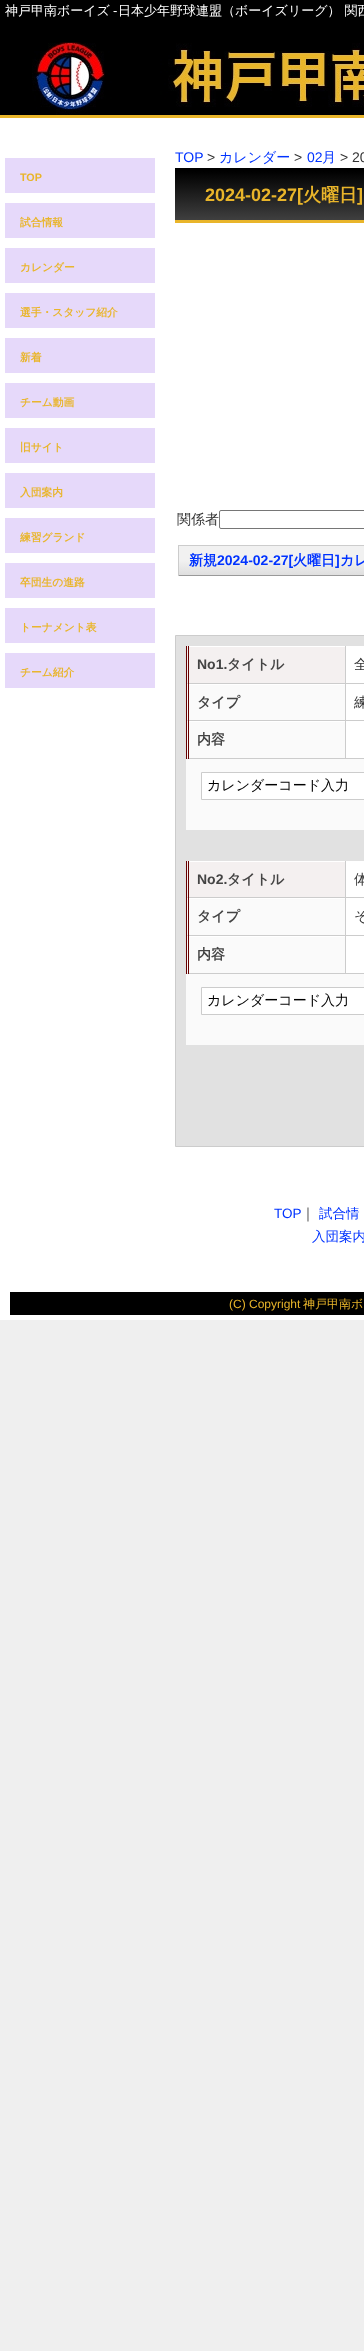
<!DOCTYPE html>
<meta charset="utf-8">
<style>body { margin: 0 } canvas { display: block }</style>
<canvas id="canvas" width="364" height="2351"></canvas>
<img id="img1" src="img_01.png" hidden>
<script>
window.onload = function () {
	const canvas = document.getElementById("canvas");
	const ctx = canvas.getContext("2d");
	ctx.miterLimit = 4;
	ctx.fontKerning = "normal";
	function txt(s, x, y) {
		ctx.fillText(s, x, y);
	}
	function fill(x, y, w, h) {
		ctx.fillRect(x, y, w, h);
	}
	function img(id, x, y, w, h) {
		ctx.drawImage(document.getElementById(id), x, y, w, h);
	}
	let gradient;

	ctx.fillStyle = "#EFEFEF";
	fill(0, 0, 364, 2351);
	ctx.fillStyle = "#000000";
	fill(0, 0, 364, 115);
	ctx.fillStyle = "#E9B52A";
	fill(0, 115, 364, 3);
	img("img1", 32, 42, 332, 73);
	ctx.fillStyle = "#FFFFFF";
	fill(0, 118, 364, 1202);
	ctx.fillStyle = "#E6D9FA";
	fill(5, 158, 150, 35);
	fill(5, 203, 150, 35);
	fill(5, 248, 150, 35);
	fill(5, 293, 150, 35);
	fill(5, 338, 150, 35);
	fill(5, 383, 150, 35);
	fill(5, 428, 150, 35);
	fill(5, 473, 150, 35);
	fill(5, 518, 150, 35);
	fill(5, 563, 150, 35);
	fill(5, 608, 150, 35);
	fill(5, 653, 150, 35);
	gradient = ctx.createLinearGradient(175, 171, 175, 220);
	gradient.addColorStop(0, "#000000");
	gradient.addColorStop(1, "#3F3F3F");
	ctx.fillStyle = gradient;
	fill(175, 171, 189, 49);
	ctx.fillStyle = "#000000";
	fill(175, 168, 189, 3);
	ctx.fillStyle = "#E9B52A";
	fill(175, 220, 189, 3);
	ctx.beginPath();
	ctx.roundRect(219.5, 510.5, 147, 18, 1.5);
	ctx.strokeStyle = "#767676";
	ctx.stroke();
	gradient = ctx.createLinearGradient(179, 546, 179, 575);
	gradient.addColorStop(0, "#FFFFFF");
	gradient.addColorStop(0.01, "#F1F1F1");
	gradient.addColorStop(0.5, "#F1F1F1");
	gradient.addColorStop(0.99, "#DFDFDF");
	gradient.addColorStop(1, "#CCCCCC");
	ctx.fillStyle = gradient;
	fill(179, 546, 185, 29);
	ctx.fillStyle = "#CCCCCC";
	fill(178, 545, 186, 1);
	ctx.fillStyle = "#999999";
	fill(178, 575, 186, 1);
	ctx.fillStyle = "#CCCCCC";
	fill(178, 545, 1, 31);
	ctx.fillStyle = "#E1E1E1";
	ctx.beginPath();
	ctx.rect(175.5, 635.5, 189, 511);
	ctx.fill();
	ctx.strokeStyle = "#CCCCCC";
	ctx.stroke();
	ctx.fillStyle = "#F4F0F0";
	fill(187, 646, 158, 38);
	ctx.fillStyle = "#FFFFFF";
	ctx.beginPath();
	ctx.moveTo(186, 646);
	ctx.lineTo(346, 646);
	ctx.lineTo(345, 647);
	ctx.lineTo(189, 647);
	ctx.closePath();
	ctx.fill();
	ctx.fillStyle = "#CCCCCC";
	fill(345, 646, 1, 38);
	ctx.beginPath();
	ctx.moveTo(346, 684);
	ctx.lineTo(186, 684);
	ctx.lineTo(189, 683);
	ctx.lineTo(345, 683);
	ctx.closePath();
	ctx.fill();
	ctx.fillStyle = "#660000";
	fill(186, 646, 1, 38);
	fill(188, 646, 1, 38);
	ctx.fillStyle = "#FFFFFF";
	fill(346, 646, 18, 37);
	ctx.fillStyle = "#CCCCCC";
	fill(346, 683, 18, 1);
	ctx.fillStyle = "#FAFAFA";
	fill(187, 684, 158, 75);
	ctx.fillStyle = "#FFFFFF";
	ctx.beginPath();
	ctx.moveTo(186, 684);
	ctx.lineTo(346, 684);
	ctx.lineTo(345, 685);
	ctx.lineTo(189, 685);
	ctx.closePath();
	ctx.fill();
	ctx.fillStyle = "#CCCCCC";
	fill(345, 684, 1, 37);
	ctx.beginPath();
	ctx.moveTo(346, 721);
	ctx.lineTo(186, 721);
	ctx.lineTo(189, 720);
	ctx.lineTo(345, 720);
	ctx.closePath();
	ctx.fill();
	ctx.fillStyle = "#660000";
	fill(186, 684, 1, 37);
	fill(188, 684, 1, 37);
	ctx.fillStyle = "#FFFFFF";
	fill(346, 684, 18, 36);
	ctx.fillStyle = "#CCCCCC";
	fill(346, 720, 18, 1);
	ctx.fillStyle = "#FFFFFF";
	ctx.beginPath();
	ctx.moveTo(186, 721);
	ctx.lineTo(346, 721);
	ctx.lineTo(345, 722);
	ctx.lineTo(189, 722);
	ctx.closePath();
	ctx.fill();
	ctx.fillStyle = "#CCCCCC";
	fill(345, 721, 1, 38);
	ctx.beginPath();
	ctx.moveTo(346, 759);
	ctx.lineTo(186, 759);
	ctx.lineTo(189, 758);
	ctx.lineTo(345, 758);
	ctx.closePath();
	ctx.fill();
	ctx.fillStyle = "#660000";
	fill(186, 721, 1, 38);
	fill(188, 721, 1, 38);
	ctx.fillStyle = "#FFFFFF";
	fill(346, 721, 18, 37);
	ctx.fillStyle = "#CCCCCC";
	fill(346, 758, 18, 1);
	ctx.fillStyle = "#FAFAFA";
	fill(186, 759, 178, 71);
	ctx.fillStyle = "#FFFFFF";
	ctx.beginPath();
	ctx.rect(201.5, 772.5, 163, 27);
	ctx.fill();
	ctx.stroke();
	ctx.fillStyle = "#F4F0F0";
	fill(187, 861, 158, 37);
	ctx.fillStyle = "#FFFFFF";
	ctx.beginPath();
	ctx.moveTo(186, 861);
	ctx.lineTo(346, 861);
	ctx.lineTo(345, 862);
	ctx.lineTo(189, 862);
	ctx.closePath();
	ctx.fill();
	ctx.fillStyle = "#CCCCCC";
	fill(345, 861, 1, 37);
	ctx.beginPath();
	ctx.moveTo(346, 898);
	ctx.lineTo(186, 898);
	ctx.lineTo(189, 897);
	ctx.lineTo(345, 897);
	ctx.closePath();
	ctx.fill();
	ctx.fillStyle = "#660000";
	fill(186, 861, 1, 37);
	fill(188, 861, 1, 37);
	ctx.fillStyle = "#FFFFFF";
	fill(346, 861, 18, 36);
	ctx.fillStyle = "#CCCCCC";
	fill(346, 897, 18, 1);
	ctx.fillStyle = "#FAFAFA";
	fill(187, 898, 158, 76);
	ctx.fillStyle = "#FFFFFF";
	ctx.beginPath();
	ctx.moveTo(186, 898);
	ctx.lineTo(346, 898);
	ctx.lineTo(345, 899);
	ctx.lineTo(189, 899);
	ctx.closePath();
	ctx.fill();
	ctx.fillStyle = "#CCCCCC";
	fill(345, 898, 1, 38);
	ctx.beginPath();
	ctx.moveTo(346, 936);
	ctx.lineTo(186, 936);
	ctx.lineTo(189, 935);
	ctx.lineTo(345, 935);
	ctx.closePath();
	ctx.fill();
	ctx.fillStyle = "#660000";
	fill(186, 898, 1, 38);
	fill(188, 898, 1, 38);
	ctx.fillStyle = "#FFFFFF";
	fill(346, 898, 18, 37);
	ctx.fillStyle = "#CCCCCC";
	fill(346, 935, 18, 1);
	ctx.fillStyle = "#FFFFFF";
	ctx.beginPath();
	ctx.moveTo(186, 936);
	ctx.lineTo(346, 936);
	ctx.lineTo(345, 937);
	ctx.lineTo(189, 937);
	ctx.closePath();
	ctx.fill();
	ctx.fillStyle = "#CCCCCC";
	fill(345, 936, 1, 38);
	ctx.beginPath();
	ctx.moveTo(346, 974);
	ctx.lineTo(186, 974);
	ctx.lineTo(189, 973);
	ctx.lineTo(345, 973);
	ctx.closePath();
	ctx.fill();
	ctx.fillStyle = "#660000";
	fill(186, 936, 1, 38);
	fill(188, 936, 1, 38);
	ctx.fillStyle = "#FFFFFF";
	fill(346, 936, 18, 37);
	ctx.fillStyle = "#CCCCCC";
	fill(346, 973, 18, 1);
	ctx.fillStyle = "#FAFAFA";
	fill(186, 974, 178, 71);
	ctx.fillStyle = "#FFFFFF";
	ctx.beginPath();
	ctx.rect(201.5, 987.5, 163, 27);
	ctx.fill();
	ctx.stroke();
	ctx.fillStyle = "#000000";
	fill(10, 1292, 354, 23);
	ctx.font = "500 13px WenQuanYi Zen Hei";
	ctx.fillStyle = "#FFFFFF";
	txt("神戸甲南ボーイズ", 5, 15);
	ctx.font = "13px Liberation Sans";
	txt("-", 113, 15);
	ctx.font = "500 13px WenQuanYi Zen Hei";
	txt("日本少年野球連盟（ボーイズリーグ） 関西", 118, 15);
	ctx.font = "bold 10.75px Liberation Sans";
	ctx.fillStyle = "#E9B52A";
	txt("TOP", 20, 181);
	ctx.font = "bold 10.75px WenQuanYi Zen Hei";
	txt("試合情報", 20, 226);
	txt("カレンダー", 20, 271);
	txt("選手・スタッフ紹介", 20, 316);
	txt("新着", 20, 361);
	txt("チーム動画", 20, 406);
	txt("旧サイト", 20, 451);
	txt("入団案内", 20, 496);
	txt("練習グランド", 20, 541);
	txt("卒団生の進路", 20, 586);
	txt("トーナメント表", 20, 631);
	txt("チーム紹介", 20, 676);
	ctx.font = "14px Liberation Sans";
	ctx.fillStyle = "#0033FF";
	txt("TOP", 175, 162);
	ctx.fillStyle = "#333333";
	txt(">", 207, 162);
	ctx.font = "500 14px WenQuanYi Zen Hei";
	ctx.fillStyle = "#0033FF";
	txt("カレンダー", 219, 162);
	ctx.font = "14px Liberation Sans";
	ctx.fillStyle = "#333333";
	txt(">", 294, 162);
	ctx.fillStyle = "#0033FF";
	txt("02", 307, 162);
	ctx.font = "500 14px WenQuanYi Zen Hei";
	txt("月", 322, 162);
	ctx.font = "14px Liberation Sans";
	ctx.fillStyle = "#333333";
	txt("> 20", 340, 162);
	ctx.font = "bold 18px Liberation Sans";
	ctx.fillStyle = "#E9B52A";
	txt("2024-02-27[", 205, 201);
	ctx.font = "bold 18px WenQuanYi Zen Hei";
	txt("火曜日", 303, 201);
	ctx.font = "bold 18px Liberation Sans";
	txt("]", 357, 201);
	ctx.font = "500 14px WenQuanYi Zen Hei";
	ctx.fillStyle = "#333333";
	txt("関係者", 177, 524);
	ctx.font = "bold 14px WenQuanYi Zen Hei";
	ctx.fillStyle = "#0033FF";
	txt("新規", 189, 565);
	ctx.font = "bold 14px Liberation Sans";
	txt("2024-02-27[", 217, 565);
	ctx.font = "bold 14px WenQuanYi Zen Hei";
	txt("火曜日", 293, 565);
	ctx.font = "bold 14px Liberation Sans";
	txt("]", 335, 565);
	ctx.font = "bold 14px WenQuanYi Zen Hei";
	txt("カレ", 340, 565);
	ctx.font = "bold 14px Liberation Sans";
	ctx.fillStyle = "#444444";
	txt("No1.", 197, 669);
	ctx.font = "bold 14px WenQuanYi Zen Hei";
	txt("タイトル", 227, 669);
	ctx.font = "500 14px WenQuanYi Zen Hei";
	ctx.fillStyle = "#333333";
	txt("全", 354, 669);
	ctx.font = "bold 14px WenQuanYi Zen Hei";
	ctx.fillStyle = "#444444";
	txt("タイプ", 197, 707);
	ctx.font = "500 14px WenQuanYi Zen Hei";
	ctx.fillStyle = "#333333";
	txt("練", 354, 707);
	ctx.font = "bold 14px WenQuanYi Zen Hei";
	ctx.fillStyle = "#444444";
	txt("内容", 197, 744);
	ctx.font = "500 14px WenQuanYi Zen Hei";
	ctx.fillStyle = "#000000";
	txt("カレンダーコード入力", 207, 790);
	ctx.font = "bold 14px Liberation Sans";
	ctx.fillStyle = "#444444";
	txt("No2.", 197, 884);
	ctx.font = "bold 14px WenQuanYi Zen Hei";
	txt("タイトル", 227, 884);
	ctx.font = "500 14px WenQuanYi Zen Hei";
	ctx.fillStyle = "#333333";
	txt("体", 354, 884);
	ctx.font = "bold 14px WenQuanYi Zen Hei";
	ctx.fillStyle = "#444444";
	txt("タイプ", 197, 921);
	ctx.font = "500 14px WenQuanYi Zen Hei";
	ctx.fillStyle = "#333333";
	txt("そ", 354, 921);
	ctx.font = "bold 14px WenQuanYi Zen Hei";
	ctx.fillStyle = "#444444";
	txt("内容", 197, 959);
	ctx.font = "500 14px WenQuanYi Zen Hei";
	ctx.fillStyle = "#000000";
	txt("カレンダーコード入力", 207, 1005);
	ctx.font = "13.5px Liberation Sans";
	ctx.fillStyle = "#0033FF";
	txt("TOP", 274, 1218);
	ctx.font = "500 14px WenQuanYi Zen Hei";
	ctx.fillStyle = "#333333";
	txt("｜", 301, 1218);
	ctx.font = "500 13.5px WenQuanYi Zen Hei";
	ctx.fillStyle = "#0033FF";
	txt("試合情", 319, 1218);
	txt("入団案内", 312, 1241);
	ctx.font = "12px Liberation Sans";
	ctx.fillStyle = "#E9B52A";
	txt("(C) Copyright", 229, 1308);
	ctx.font = "500 12px WenQuanYi Zen Hei";
	txt("神戸甲南ボ", 303, 1308);
};
</script>
